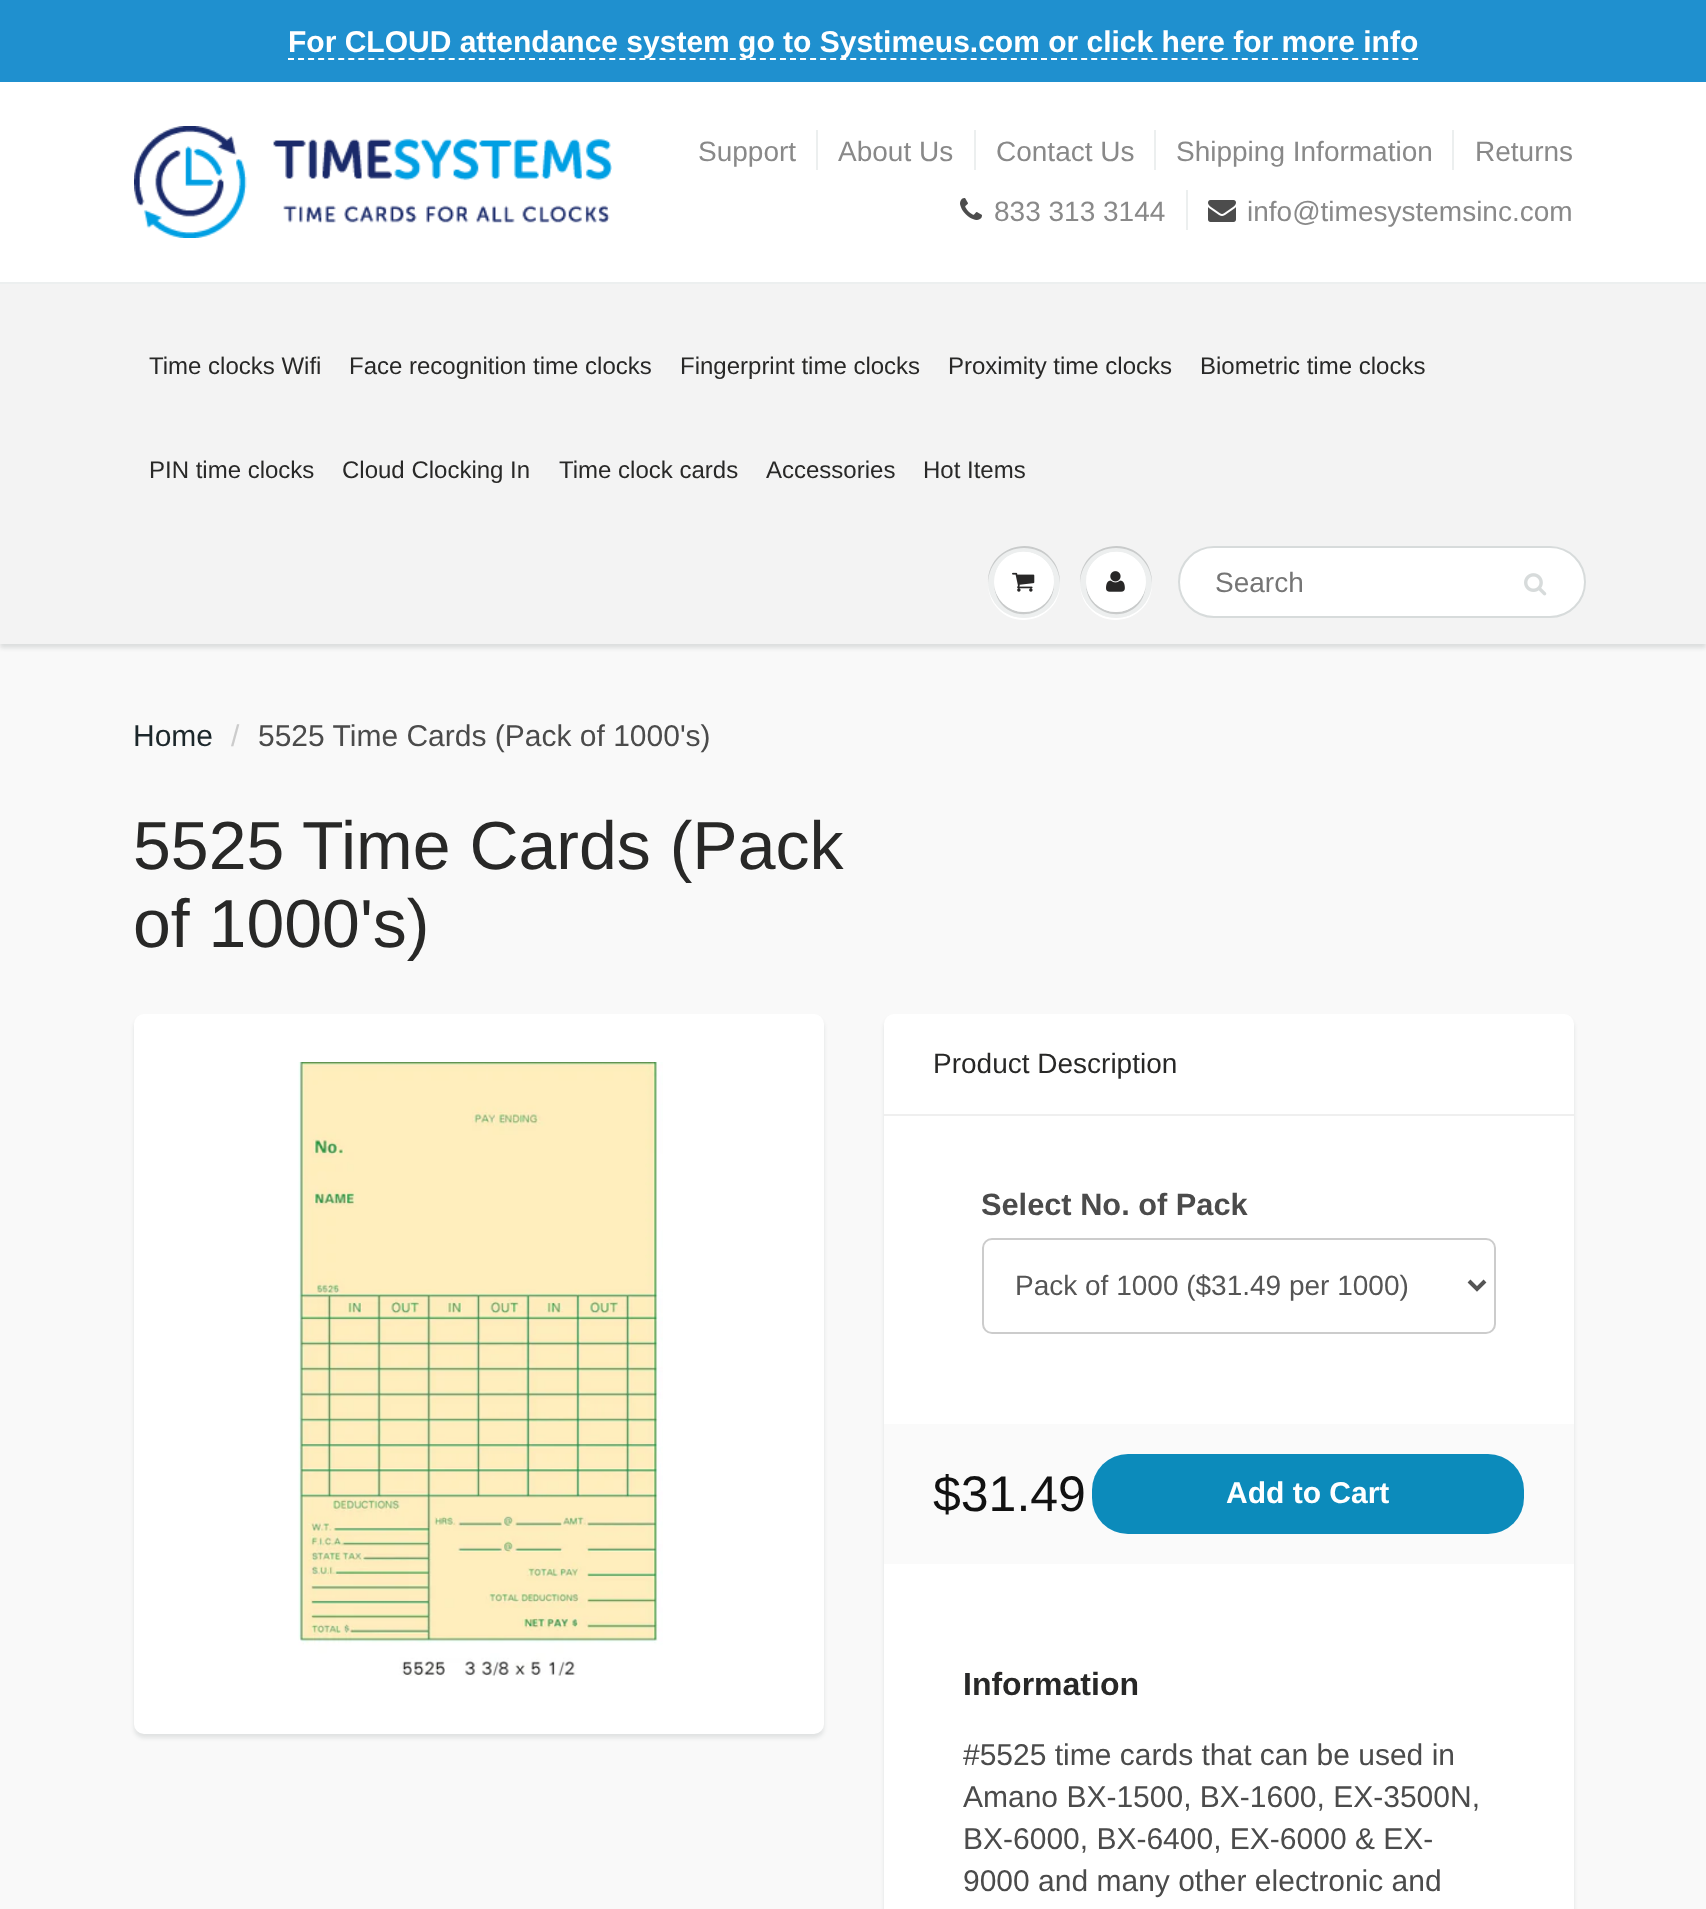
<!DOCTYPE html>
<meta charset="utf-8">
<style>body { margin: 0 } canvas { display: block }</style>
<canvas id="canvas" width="1706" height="1909"></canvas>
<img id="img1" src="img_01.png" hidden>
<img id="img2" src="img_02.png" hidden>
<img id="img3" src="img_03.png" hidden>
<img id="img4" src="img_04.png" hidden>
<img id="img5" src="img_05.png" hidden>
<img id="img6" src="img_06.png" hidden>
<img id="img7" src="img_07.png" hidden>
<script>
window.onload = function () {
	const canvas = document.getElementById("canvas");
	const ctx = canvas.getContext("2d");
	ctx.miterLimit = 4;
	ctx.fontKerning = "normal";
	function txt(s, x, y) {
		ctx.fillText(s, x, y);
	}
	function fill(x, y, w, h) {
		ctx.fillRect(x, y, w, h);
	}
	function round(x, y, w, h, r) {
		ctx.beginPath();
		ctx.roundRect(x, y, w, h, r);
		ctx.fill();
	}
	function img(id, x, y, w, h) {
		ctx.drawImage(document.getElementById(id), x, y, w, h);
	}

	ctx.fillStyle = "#FFFFFF";
	fill(0, 0, 1706, 1909);
	ctx.fillStyle = "#1F90CF";
	fill(0, 0, 1706, 82);
	ctx.beginPath();
	ctx.moveTo(288, 59);
	ctx.lineTo(1418, 59);
	ctx.strokeStyle = "#FFFFFF";
	ctx.lineWidth = 2;
	ctx.setLineDash([6, 4.04]);
	ctx.stroke();
	img("img1", 134, 126, 478, 112);
	ctx.fillStyle = "#ECEFEF";
	fill(816, 130, 2, 40);
	fill(974, 130, 2, 40);
	fill(1154, 130, 2, 40);
	fill(1452, 130, 2, 40);
	img("img2", 960, 198, 22, 22);
	fill(1186, 190, 2, 40);
	img("img3", 1208, 200, 28, 22);
	ctx.fillStyle = "#F9F9F9";
	fill(0, 644, 1706, 1265);
	ctx.fillStyle = "rgba(11, 25, 28, 0.12)";
	ctx.filter = "blur(2px)";
	ctx.beginPath();
	ctx.rect(0, 286, 1706, 362);
	ctx.fill();
	ctx.filter = "none";
	ctx.fillStyle = "#ECEFEF";
	fill(0, 282, 1706, 2);
	ctx.fillStyle = "#F3F3F3";
	fill(0, 284, 1706, 360);
	ctx.fillStyle = "#FFFFFF";
	ctx.beginPath();
	ctx.moveTo(988, 583);
	ctx.bezierCurveTo(988, 590, 990, 598, 994, 604);
	ctx.bezierCurveTo(1014, 634, 1061, 619, 1060, 583);
	ctx.bezierCurveTo(1059, 602, 1044, 618, 1024, 618);
	ctx.bezierCurveTo(1004, 618, 989, 602, 988, 583);
	ctx.closePath();
	ctx.fill();
	ctx.fillStyle = "#EDEFEF";
	ctx.beginPath();
	ctx.arc(1024, 582, 36, 0, Math.PI * 2);
	ctx.fill();
	ctx.fillStyle = "#C9CBCB";
	ctx.beginPath();
	ctx.moveTo(1054, 583);
	ctx.bezierCurveTo(1053, 599, 1040, 612, 1024, 612);
	ctx.bezierCurveTo(1008, 612, 995, 599, 994, 583);
	ctx.bezierCurveTo(994, 589, 996, 596, 999, 601);
	ctx.bezierCurveTo(1016, 626, 1055, 613, 1054, 583);
	ctx.closePath();
	ctx.fill();
	ctx.beginPath();
	ctx.moveTo(1024, 548);
	ctx.bezierCurveTo(1044, 548, 1059, 563, 1060, 583);
	ctx.bezierCurveTo(1060, 576, 1058, 568, 1054, 562);
	ctx.bezierCurveTo(1034, 532, 987, 547, 988, 583);
	ctx.bezierCurveTo(989, 563, 1004, 548, 1024, 548);
	ctx.closePath();
	ctx.fill();
	ctx.fillStyle = "#FFFFFF";
	ctx.beginPath();
	ctx.arc(1024, 582, 30, 0, Math.PI * 2);
	ctx.fill();
	ctx.beginPath();
	ctx.moveTo(1024, 554);
	ctx.bezierCurveTo(1041, 554, 1053, 566, 1054, 583);
	ctx.bezierCurveTo(1055, 553, 1016, 540, 999, 565);
	ctx.bezierCurveTo(996, 570, 994, 577, 994, 583);
	ctx.bezierCurveTo(995, 566, 1007, 554, 1024, 554);
	ctx.closePath();
	ctx.fill();
	img("img4", 1012, 572, 23, 20);
	ctx.beginPath();
	ctx.moveTo(1080, 583);
	ctx.bezierCurveTo(1080, 590, 1082, 598, 1086, 604);
	ctx.bezierCurveTo(1106, 634, 1153, 619, 1152, 583);
	ctx.bezierCurveTo(1151, 602, 1136, 618, 1116, 618);
	ctx.bezierCurveTo(1096, 618, 1081, 602, 1080, 583);
	ctx.closePath();
	ctx.fill();
	ctx.fillStyle = "#EDEFEF";
	ctx.beginPath();
	ctx.arc(1116, 582, 36, 0, Math.PI * 2);
	ctx.fill();
	ctx.fillStyle = "#C9CBCB";
	ctx.beginPath();
	ctx.moveTo(1146, 583);
	ctx.bezierCurveTo(1145, 599, 1132, 612, 1116, 612);
	ctx.bezierCurveTo(1100, 612, 1087, 599, 1086, 583);
	ctx.bezierCurveTo(1085, 613, 1124, 626, 1141, 601);
	ctx.bezierCurveTo(1144, 596, 1146, 589, 1146, 583);
	ctx.closePath();
	ctx.fill();
	ctx.beginPath();
	ctx.moveTo(1116, 548);
	ctx.bezierCurveTo(1136, 548, 1151, 563, 1152, 583);
	ctx.bezierCurveTo(1152, 576, 1150, 568, 1146, 562);
	ctx.bezierCurveTo(1126, 532, 1079, 547, 1080, 583);
	ctx.bezierCurveTo(1081, 563, 1096, 548, 1116, 548);
	ctx.closePath();
	ctx.fill();
	ctx.fillStyle = "#FFFFFF";
	ctx.beginPath();
	ctx.arc(1116, 582, 30, 0, Math.PI * 2);
	ctx.fill();
	ctx.beginPath();
	ctx.moveTo(1116, 554);
	ctx.bezierCurveTo(1133, 554, 1145, 566, 1146, 583);
	ctx.bezierCurveTo(1146, 577, 1144, 570, 1141, 565);
	ctx.bezierCurveTo(1124, 540, 1085, 553, 1086, 583);
	ctx.bezierCurveTo(1087, 566, 1099, 554, 1116, 554);
	ctx.closePath();
	ctx.fill();
	img("img5", 1106, 571, 19, 21);
	ctx.beginPath();
	ctx.roundRect(1179, 547, 406, 70, 35);
	ctx.fill();
	ctx.strokeStyle = "#D7DBDB";
	ctx.setLineDash([]);
	ctx.stroke();
	img("img6", 1524, 573, 23, 23);
	ctx.fillStyle = "rgba(11, 25, 28, 0.1)";
	ctx.filter = "blur(2px)";
	ctx.beginPath();
	ctx.roundRect(134, 1018, 690, 720, 10);
	ctx.fill();
	ctx.filter = "none";
	ctx.fillStyle = "#FFFFFF";
	round(134, 1014, 690, 720, 10);
	img("img7", 298, 1062, 365, 614);
	ctx.fillStyle = "rgba(11, 25, 28, 0.1)";
	ctx.filter = "blur(2px)";
	ctx.beginPath();
	ctx.roundRect(884, 1018, 690, 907, 10);
	ctx.fill();
	ctx.filter = "none";
	ctx.fillStyle = "#FFFFFF";
	round(884, 1014, 690, 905, 10);
	ctx.fillStyle = "#EFEFEF";
	fill(884, 1114, 690, 2);
	ctx.beginPath();
	ctx.roundRect(983, 1239, 512, 94, 9);
	ctx.strokeStyle = "#CCCCCC";
	ctx.stroke();
	ctx.beginPath();
	ctx.moveTo(1469, 1281);
	ctx.lineTo(1477, 1289);
	ctx.lineTo(1485, 1281);
	ctx.strokeStyle = "#555555";
	ctx.lineWidth = 4;
	ctx.stroke();
	ctx.fillStyle = "#FAFAFA";
	fill(884, 1424, 690, 140);
	ctx.fillStyle = "#0C8BBB";
	round(1092, 1454, 432, 80, 36);
	ctx.font = "bold 30px Liberation Sans";
	ctx.fillStyle = "#FFFFFF";
	txt("For CLOUD attendance system go to Systimeus.com or click here for more info", 288, 52);
	ctx.font = "28px Liberation Sans";
	ctx.fillStyle = "#898989";
	txt("Support", 698, 161);
	txt("About Us", 838, 161);
	txt("Contact Us", 996, 161);
	txt("Shipping Information", 1176, 161);
	txt("Returns", 1475, 161);
	txt("833 313 3144", 994, 221);
	txt("info@timesystemsinc.com", 1247, 221);
	ctx.font = "24px Liberation Sans";
	ctx.fillStyle = "#282827";
	txt("Time clocks Wifi", 149, 374);
	txt("Face recognition time clocks", 349, 374);
	txt("Fingerprint time clocks", 680, 374);
	txt("Proximity time clocks", 948, 374);
	txt("Biometric time clocks", 1200, 374);
	txt("PIN time clocks", 149, 478);
	txt("Cloud Clocking In", 342, 478);
	txt("Time clock cards", 559, 478);
	txt("Accessories", 766, 478);
	txt("Hot Items", 923, 478);
	ctx.font = "28px Liberation Sans";
	ctx.fillStyle = "#757575";
	txt("Search", 1215, 592);
	ctx.font = "30px Liberation Sans";
	ctx.fillStyle = "#1C272B";
	txt("Home", 133, 746);
	ctx.fillStyle = "#CCCCCC";
	txt("/", 231, 746);
	ctx.fillStyle = "#4B4B4B";
	txt("5525 Time Cards (Pack of 1000's)", 258, 746);
	ctx.font = "68px Liberation Sans";
	ctx.fillStyle = "#282827";
	txt("5525 Time Cards (Pack", 133, 869);
	txt("of 1000's)", 133, 947);
	ctx.font = "28px Liberation Sans";
	txt("Product Description", 933, 1073);
	ctx.font = "bold 30.75px Liberation Sans";
	ctx.fillStyle = "#4B4B4B";
	txt("Select No. of Pack", 981, 1215);
	ctx.font = "28px Liberation Sans";
	ctx.fillStyle = "#555555";
	txt("Pack of 1000 ($31.49 per 1000)", 1015, 1295);
	ctx.font = "50px Liberation Sans";
	ctx.fillStyle = "#111111";
	txt("$31.49", 933, 1511);
	ctx.font = "bold 30px Liberation Sans";
	ctx.fillStyle = "#FFFFFF";
	txt("Add to Cart", 1226, 1503);
	ctx.font = "bold 32px Liberation Sans";
	ctx.fillStyle = "#282827";
	txt("Information", 963, 1695);
	ctx.font = "30px Liberation Sans";
	ctx.fillStyle = "#4B4B4B";
	txt("#5525 time cards that can be used in", 963, 1765);
	txt("Amano BX-1500, BX-1600, EX-3500N,", 963, 1807);
	txt("BX-6000, BX-6400, EX-6000 & EX-", 963, 1849);
	txt("9000 and many other electronic and", 963, 1891);
};
</script>
